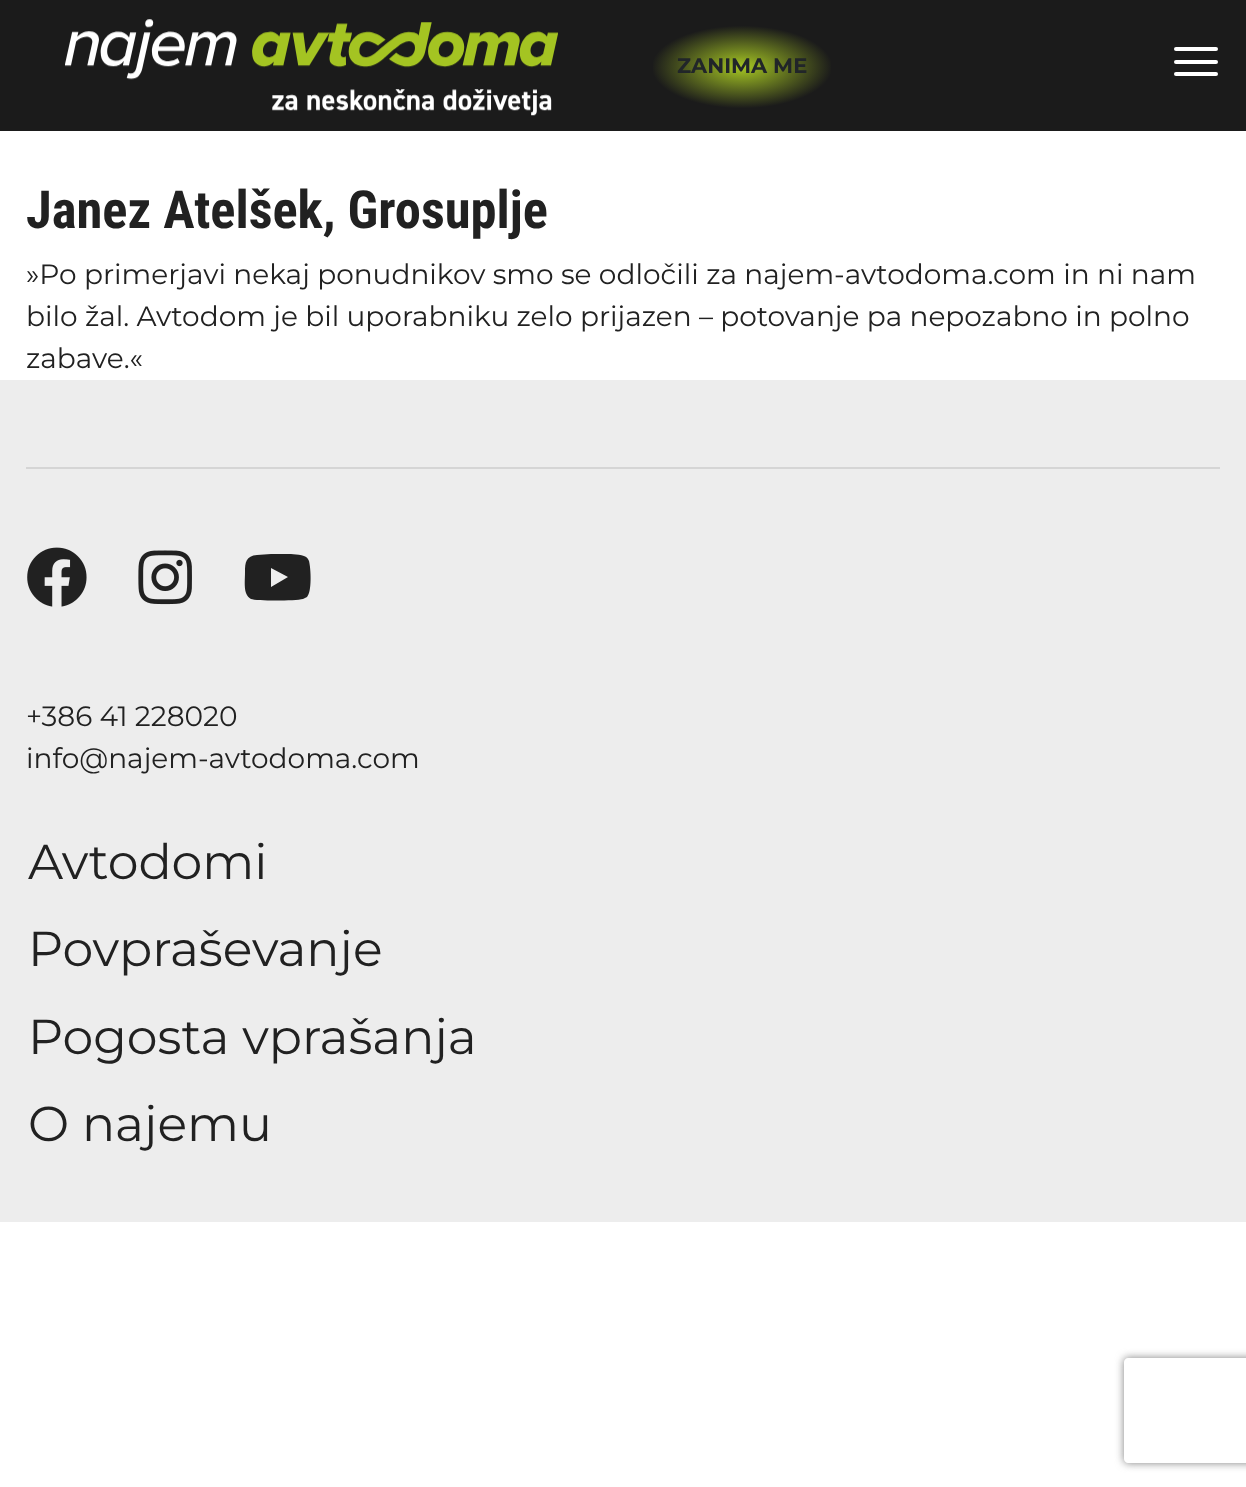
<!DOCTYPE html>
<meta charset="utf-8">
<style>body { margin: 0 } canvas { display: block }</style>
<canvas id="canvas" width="1246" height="1487"></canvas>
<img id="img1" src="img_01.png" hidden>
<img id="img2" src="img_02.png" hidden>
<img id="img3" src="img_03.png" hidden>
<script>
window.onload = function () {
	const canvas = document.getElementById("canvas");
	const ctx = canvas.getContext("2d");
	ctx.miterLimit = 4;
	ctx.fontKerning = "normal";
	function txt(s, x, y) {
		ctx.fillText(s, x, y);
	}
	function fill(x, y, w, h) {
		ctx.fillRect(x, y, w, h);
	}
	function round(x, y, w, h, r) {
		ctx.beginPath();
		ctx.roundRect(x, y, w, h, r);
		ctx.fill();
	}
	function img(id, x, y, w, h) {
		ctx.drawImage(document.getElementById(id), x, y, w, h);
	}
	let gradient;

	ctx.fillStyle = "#FFFFFF";
	fill(0, 0, 1246, 1487);
	ctx.fillStyle = "#1B1B1B";
	fill(0, 0, 1246, 131);
	img("img1", 65, 19, 493, 97);
	gradient = ctx.createRadialGradient(742, 146.49, 0, 742, 146.49, 129);
	gradient.addColorStop(0.01, "#A4C423");
	gradient.addColorStop(0.7, "#1B1B1B");
	ctx.fillStyle = gradient;
	ctx.beginPath();
	ctx.rect(653, 26, 178, 82);
	ctx.save();
	ctx.clip();
	ctx.scale(1, 59 / 129);
	ctx.fillRect(0, 0, 1246, 3252);
	ctx.restore();
	ctx.fillStyle = "#FFFFFF";
	round(1174, 47, 44, 4, 2);
	round(1174, 60, 44, 4, 2);
	round(1174, 72, 44, 4, 2);
	ctx.fillStyle = "#EDEDED";
	fill(0, 380, 1246, 842);
	ctx.fillStyle = "#D5D5D5";
	fill(26, 467, 1194, 2);
	img("img2", 27, 547, 60, 60);
	img("img3", 138, 550, 54, 55);
	ctx.fillStyle = "#212121";
	ctx.beginPath();
	ctx.moveTo(309, 561);
	ctx.bezierCurveTo(311, 569, 312, 592, 307, 597);
	ctx.lineTo(303, 599);
	ctx.bezierCurveTo(295, 601, 256, 601, 251, 599);
	ctx.bezierCurveTo(249, 598, 247, 596, 246, 593);
	ctx.bezierCurveTo(244, 587, 245, 579, 245, 572);
	ctx.bezierCurveTo(245, 562, 246, 556, 257, 555);
	ctx.lineTo(271, 554);
	ctx.lineTo(291, 554);
	ctx.bezierCurveTo(297, 555, 307, 554, 309, 561);
	ctx.closePath();
	ctx.moveTo(271, 587);
	ctx.lineTo(288, 577);
	ctx.lineTo(271, 568);
	ctx.closePath();
	ctx.fill();
	ctx.save();
	ctx.beginPath();
	ctx.moveTo(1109, 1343);
	ctx.lineTo(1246, 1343);
	ctx.lineTo(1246, 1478);
	ctx.lineTo(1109, 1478);
	ctx.closePath();
	ctx.moveTo(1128, 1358);
	ctx.lineTo(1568, 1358);
	ctx.bezierCurveTo(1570, 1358, 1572, 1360, 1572, 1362);
	ctx.lineTo(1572, 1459);
	ctx.bezierCurveTo(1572, 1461, 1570, 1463, 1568, 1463);
	ctx.lineTo(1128, 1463);
	ctx.bezierCurveTo(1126, 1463, 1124, 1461, 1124, 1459);
	ctx.lineTo(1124, 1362);
	ctx.bezierCurveTo(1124, 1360, 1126, 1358, 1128, 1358);
	ctx.closePath();
	ctx.clip("evenodd");
	ctx.fillStyle = "#808080";
	ctx.filter = "blur(4.5px)";
	ctx.beginPath();
	ctx.roundRect(1124, 1358, 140, 105, 4);
	ctx.fill();
	ctx.filter = "none";
	ctx.restore();
	ctx.font = "bold 21px Montserrat";
	ctx.fillStyle = "#212529";
	txt("ZANIMA ME", 677, 73);
	ctx.font = "bold 52.5px Roboto Condensed";
	ctx.fillStyle = "#212121";
	txt("Janez Atelšek, Grosuplje", 26, 228);
	ctx.font = "28px Montserrat";
	txt("»Po primerjavi nekaj ponudnikov smo se odločili za najem-avtodoma.com in ni nam", 26, 284);
	txt("bilo žal. Avtodom je bil uporabniku zelo prijazen – potovanje pa nepozabno in polno", 26, 326);
	txt("zabave.«", 26, 368);
	txt("+386 41 228020", 26, 726);
	txt("info@najem-avtodoma.com", 26, 768);
	ctx.font = "49px Montserrat";
	txt("Avtodomi", 28, 879);
	txt("Povpraševanje", 28, 966);
	txt("Pogosta vprašanja", 28, 1054);
	txt("O najemu", 28, 1141);
};
</script>
